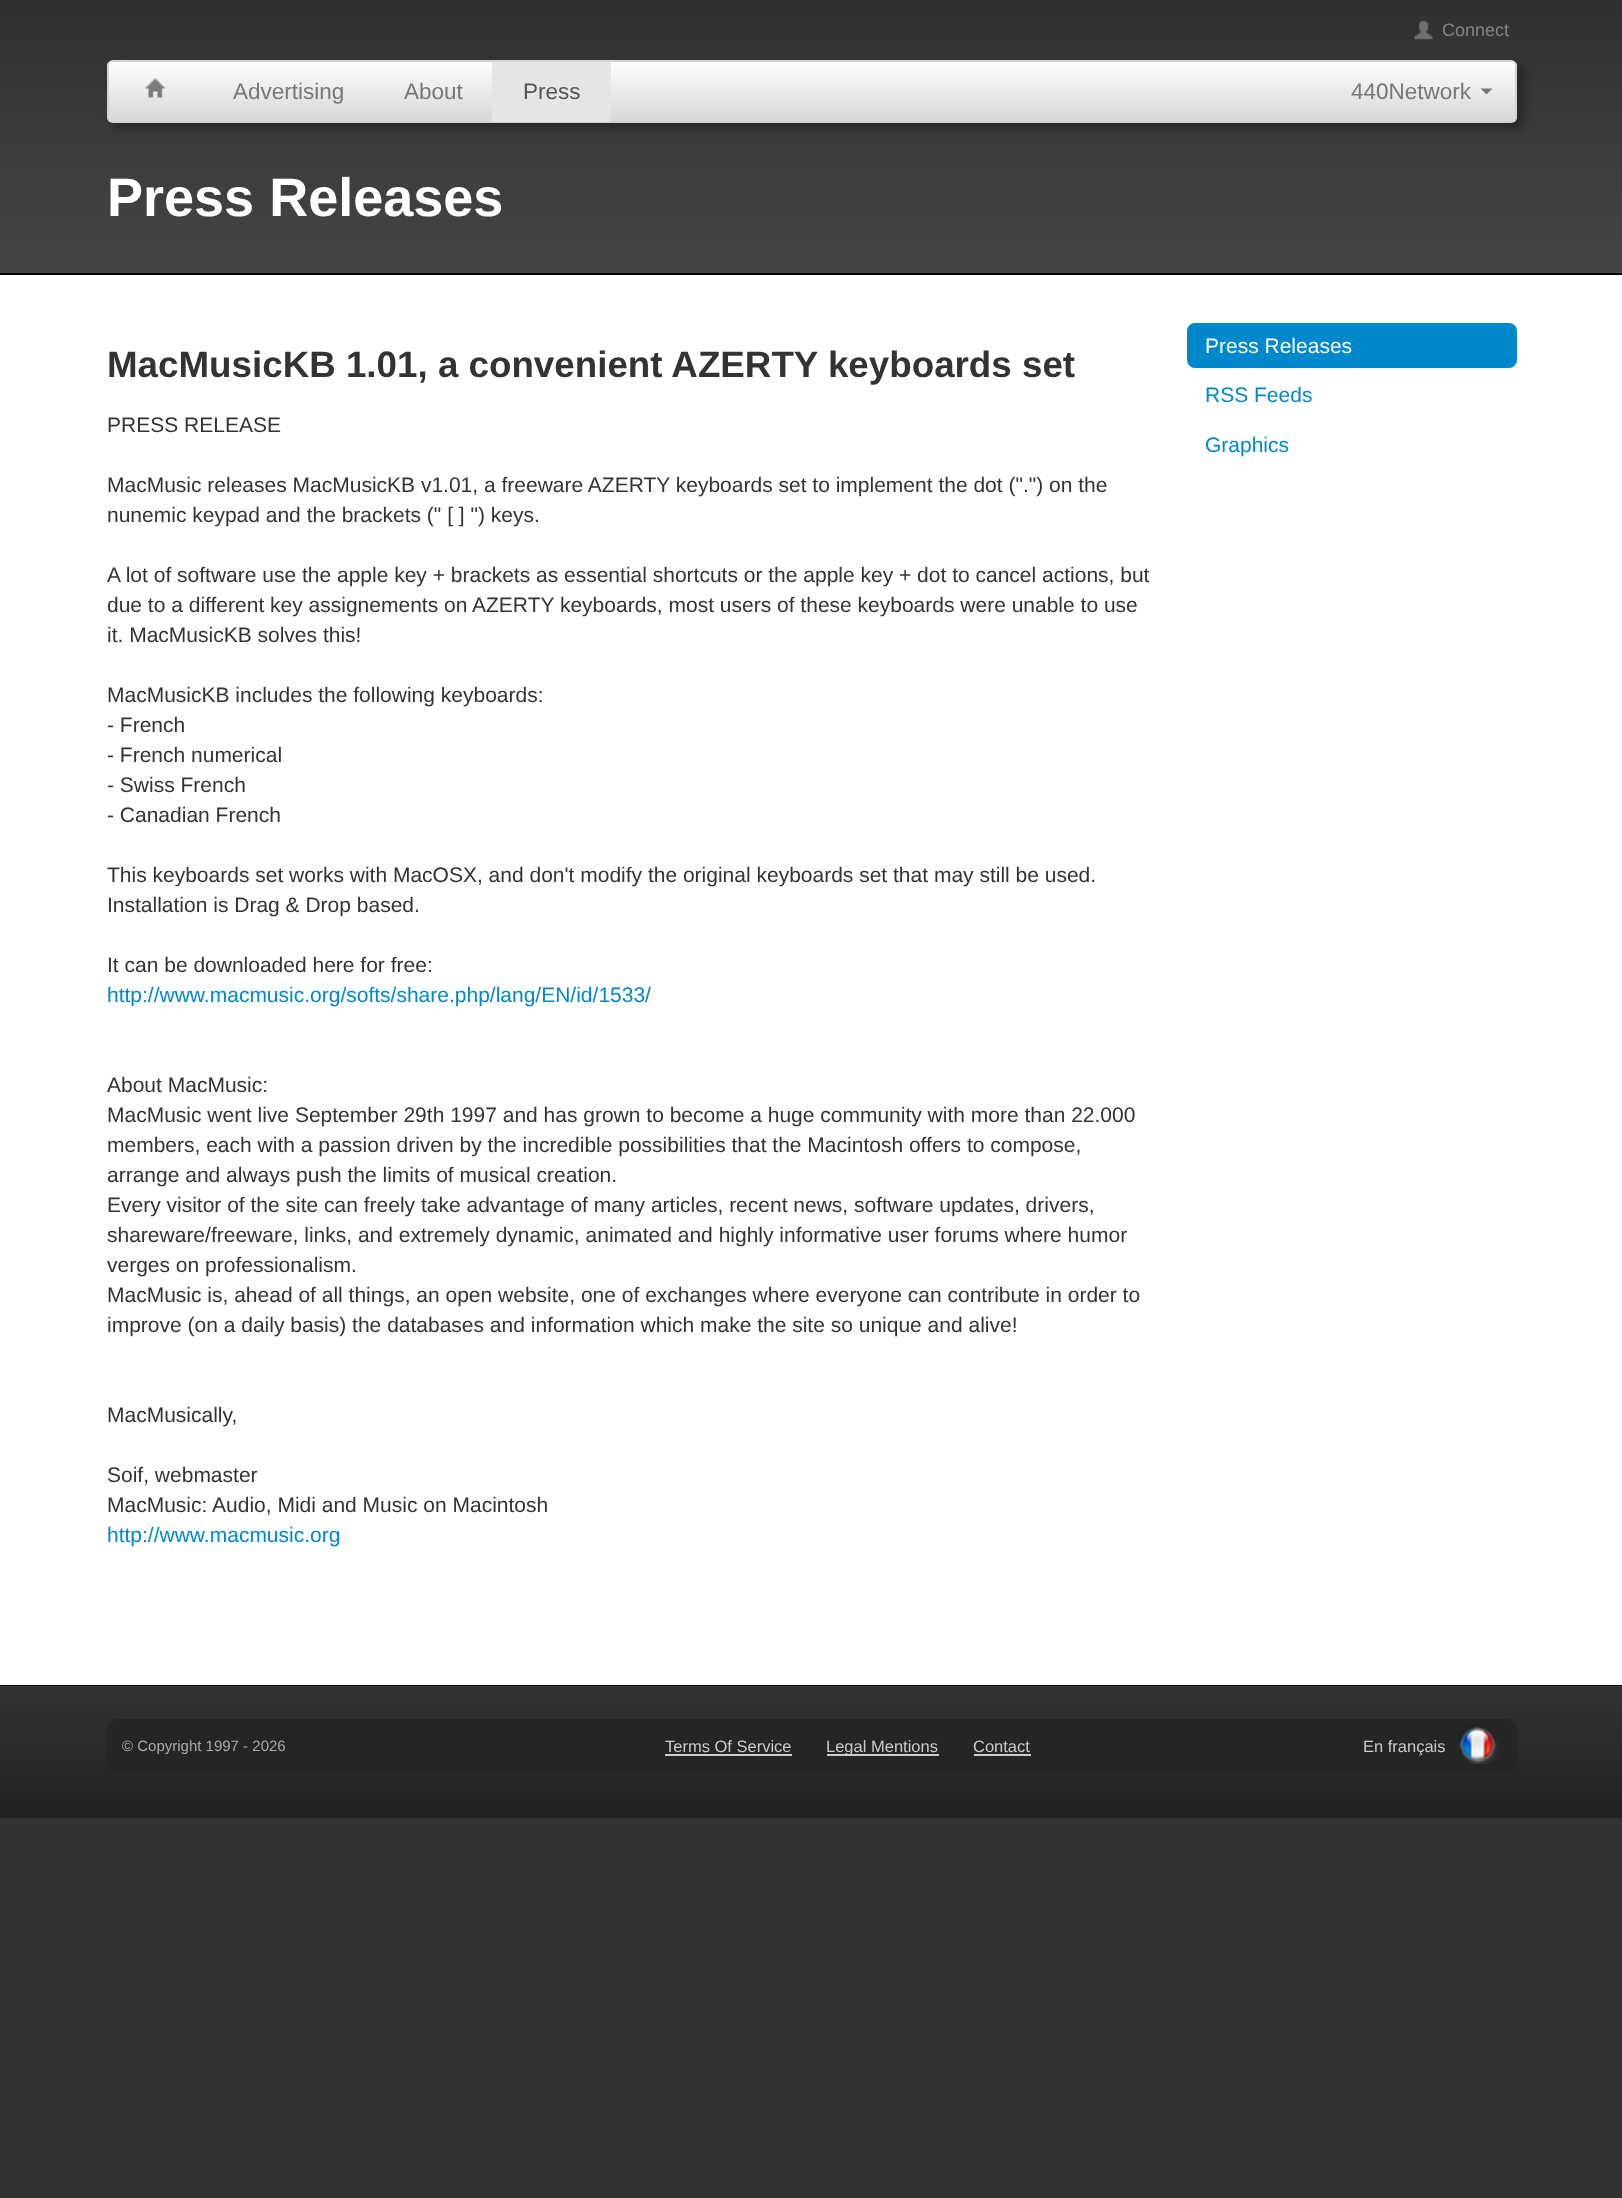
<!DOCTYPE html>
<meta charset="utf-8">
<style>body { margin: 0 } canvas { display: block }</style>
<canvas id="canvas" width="1622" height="2198"></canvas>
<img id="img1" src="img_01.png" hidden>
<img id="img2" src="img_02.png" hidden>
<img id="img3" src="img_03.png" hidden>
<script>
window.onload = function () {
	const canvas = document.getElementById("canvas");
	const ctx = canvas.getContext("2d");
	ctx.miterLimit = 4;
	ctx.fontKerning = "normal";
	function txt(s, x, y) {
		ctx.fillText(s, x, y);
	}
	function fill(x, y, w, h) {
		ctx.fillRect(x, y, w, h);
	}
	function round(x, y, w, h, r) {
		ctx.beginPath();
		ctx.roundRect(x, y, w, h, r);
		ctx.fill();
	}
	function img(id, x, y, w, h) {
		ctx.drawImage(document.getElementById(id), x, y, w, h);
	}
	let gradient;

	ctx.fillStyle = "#333333";
	fill(0, 0, 1622, 2198);
	ctx.fillStyle = "#000000";
	fill(0, 273, 1622, 2);
	gradient = ctx.createLinearGradient(812, 0, 812, 273);
	gradient.addColorStop(0, "#303032");
	gradient.addColorStop(0.94, "#444447");
	gradient.addColorStop(1, "#444447");
	ctx.fillStyle = gradient;
	fill(0, 0, 1622, 273);
	img("img1", 1414, 20, 19, 20);
	ctx.fillStyle = "rgba(0, 0, 0, 0.3)";
	ctx.filter = "blur(4px)";
	ctx.beginPath();
	ctx.rect(113, 66, 1410, 63);
	ctx.fill();
	ctx.filter = "none";
	ctx.save();
	ctx.beginPath();
	ctx.roundRect(107, 60, 1410, 63, 6);
	ctx.clip();
	gradient = ctx.createLinearGradient(812, 61, 812, 122);
	gradient.addColorStop(0, "#FFFFFF");
	gradient.addColorStop(1, "#D6D6D6");
	ctx.fillStyle = gradient;
	fill(107, 62, 1410, 60);
	ctx.restore();
	ctx.beginPath();
	ctx.roundRect(108, 61, 1408, 61, 5);
	ctx.strokeStyle = "#D4D4D4";
	ctx.lineWidth = 2;
	ctx.stroke();
	img("img2", 145, 78, 21, 20);
	ctx.fillStyle = "#E5E5E5";
	fill(492, 62, 119, 60);
	ctx.fillStyle = "#777777";
	ctx.beginPath();
	ctx.moveTo(1480.5, 88.5);
	ctx.lineTo(1492.5, 88.5);
	ctx.lineTo(1486.5, 94.5);
	ctx.closePath();
	ctx.fill();
	ctx.fillStyle = "#FFFFFF";
	fill(0, 275, 1622, 1410);
	ctx.fillStyle = "#0088CC";
	round(1187, 323, 330, 45, 8);
	gradient = ctx.createLinearGradient(812, 1686, 812, 1818);
	gradient.addColorStop(0, "#333333");
	gradient.addColorStop(1, "#212121");
	ctx.fillStyle = gradient;
	fill(0, 1704, 1622, 114);
	ctx.fillStyle = "#000000";
	fill(0, 1685, 1622, 1);
	ctx.fillStyle = "#252525";
	round(107, 1719, 1410, 54, 11);
	ctx.fillStyle = "#CCCCCC";
	fill(665, 1754, 127, 2);
	fill(827, 1754, 112, 2);
	fill(974, 1754, 57, 2);
	img("img3", 1459, 1725, 40, 39);
	ctx.font = "18px Liberation Sans";
	ctx.fillStyle = "#848485";
	txt("Connect", 1442, 36);
	ctx.font = "22.5px Liberation Sans";
	ctx.fillStyle = "#777777";
	txt("Advertising", 233, 99);
	txt("About", 404, 99);
	ctx.fillStyle = "#555555";
	txt("Press", 523, 99);
	ctx.fillStyle = "#777777";
	txt("440Network", 1351, 99);
	ctx.font = "bold 54px Liberation Sans";
	ctx.fillStyle = "#FFFFFF";
	txt("Press Releases", 107, 216);
	ctx.font = "bold 36.75px Liberation Sans";
	ctx.fillStyle = "#333333";
	txt("MacMusicKB 1.01, a convenient AZERTY keyboards set", 107, 377);
	ctx.font = "21px Liberation Sans";
	txt("PRESS RELEASE", 107, 432);
	txt("MacMusic releases MacMusicKB v1.01, a freeware AZERTY keyboards set to implement the dot (\".\") on the", 107, 492);
	txt("nunemic keypad and the brackets (\" [ ] \") keys.", 107, 522);
	txt("A lot of software use the apple key + brackets as essential shortcuts or the apple key + dot to cancel actions, but", 107, 582);
	txt("due to a different key assignements on AZERTY keyboards, most users of these keyboards were unable to use", 107, 612);
	txt("it. MacMusicKB solves this!", 107, 642);
	txt("MacMusicKB includes the following keyboards:", 107, 702);
	txt("- French", 107, 732);
	txt("- French numerical", 107, 762);
	txt("- Swiss French", 107, 792);
	txt("- Canadian French", 107, 822);
	txt("This keyboards set works with MacOSX, and don't modify the original keyboards set that may still be used.", 107, 882);
	txt("Installation is Drag & Drop based.", 107, 912);
	txt("It can be downloaded here for free:", 107, 972);
	ctx.fillStyle = "#0088CC";
	txt("http://www.macmusic.org/softs/share.php/lang/EN/id/1533/", 107, 1002);
	ctx.fillStyle = "#333333";
	txt("About MacMusic:", 107, 1092);
	txt("MacMusic went live September 29th 1997 and has grown to become a huge community with more than 22.000", 107, 1122);
	txt("members, each with a passion driven by the incredible possibilities that the Macintosh offers to compose,", 107, 1152);
	txt("arrange and always push the limits of musical creation.", 107, 1182);
	txt("Every visitor of the site can freely take advantage of many articles, recent news, software updates, drivers,", 107, 1212);
	txt("shareware/freeware, links, and extremely dynamic, animated and highly informative user forums where humor", 107, 1242);
	txt("verges on professionalism.", 107, 1272);
	txt("MacMusic is, ahead of all things, an open website, one of exchanges where everyone can contribute in order to", 107, 1302);
	txt("improve (on a daily basis) the databases and information which make the site so unique and alive!", 107, 1332);
	txt("MacMusically,", 107, 1422);
	txt("Soif, webmaster", 107, 1482);
	txt("MacMusic: Audio, Midi and Music on Macintosh", 107, 1512);
	ctx.fillStyle = "#0088CC";
	txt("http://www.macmusic.org", 107, 1542);
	ctx.fillStyle = "#FFFFFF";
	txt("Press Releases", 1205, 353);
	ctx.fillStyle = "#0088CC";
	txt("RSS Feeds", 1205, 402);
	txt("Graphics", 1205, 452);
	ctx.font = "15px Liberation Sans";
	ctx.fillStyle = "#AAAAAA";
	txt("© Copyright 1997 - 2026", 122, 1751);
	ctx.font = "16.5px Liberation Sans";
	ctx.fillStyle = "#CCCCCC";
	txt("Terms Of Service", 665, 1752);
	txt("Legal Mentions", 826, 1752);
	txt("Contact", 973, 1752);
	txt("En français", 1363, 1752);
};
</script>
